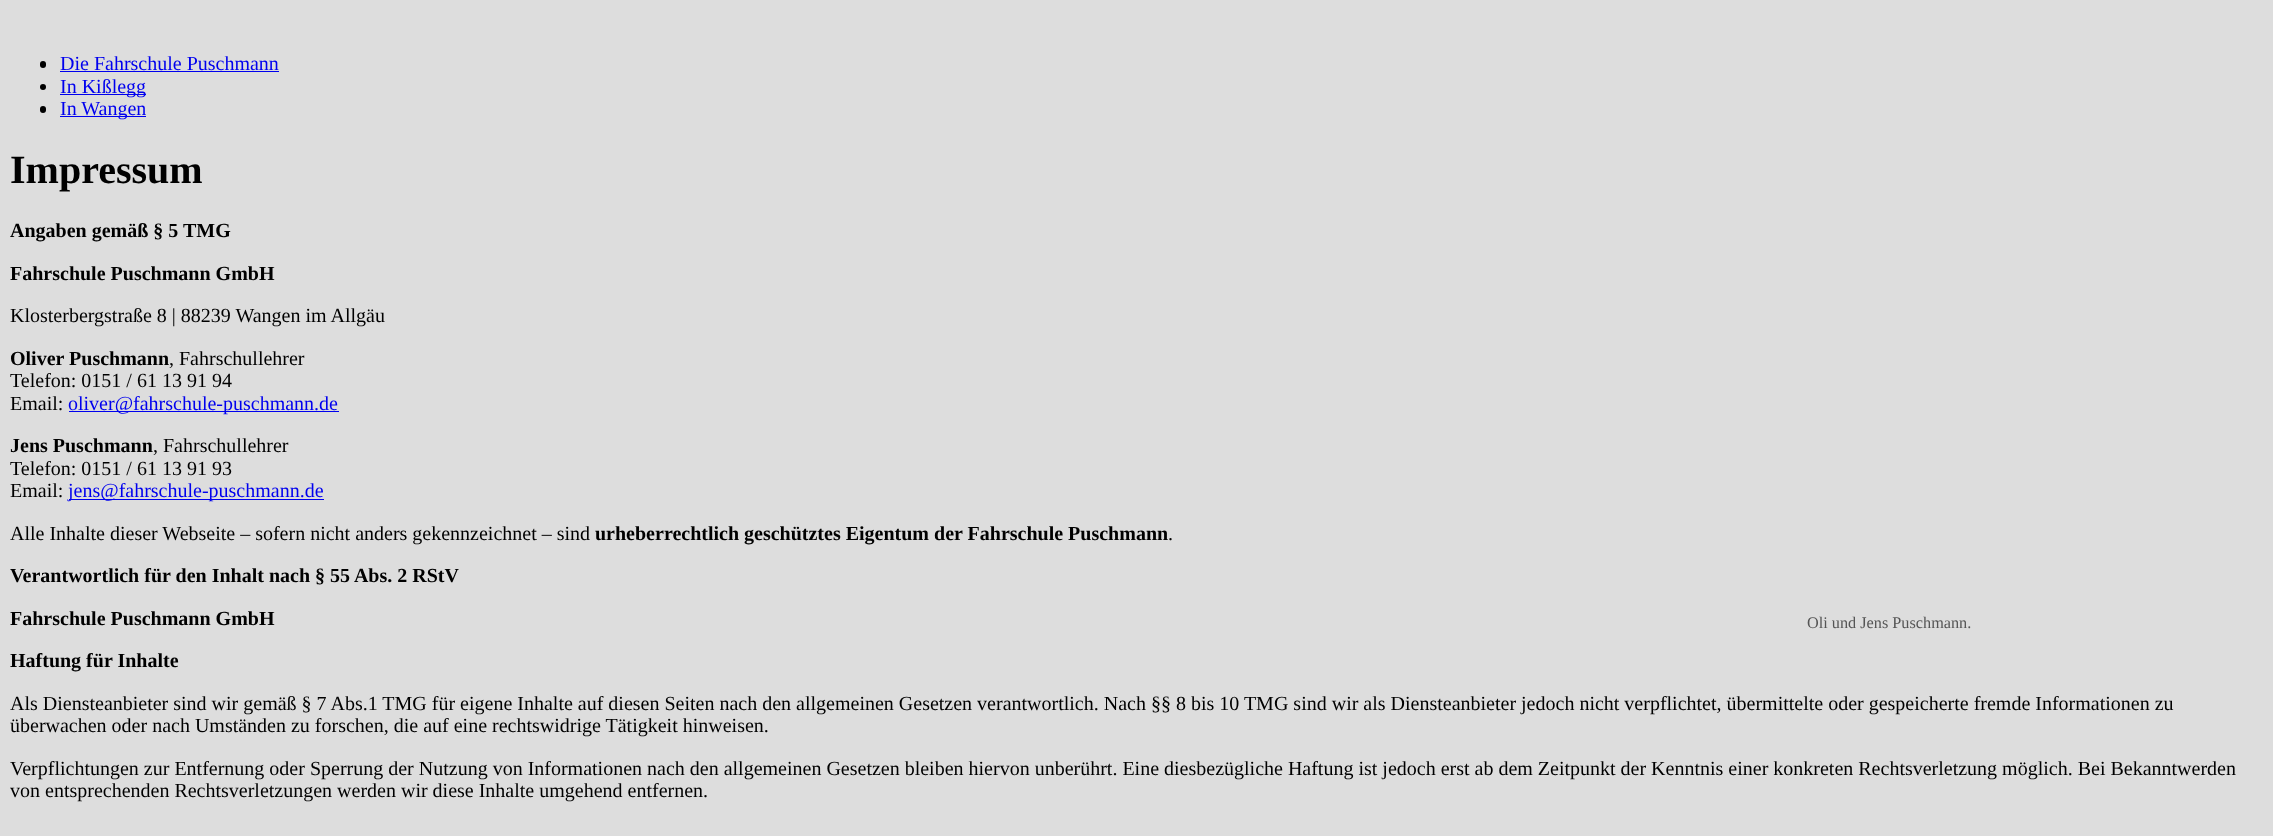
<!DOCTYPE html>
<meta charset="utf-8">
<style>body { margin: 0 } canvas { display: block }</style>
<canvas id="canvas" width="2273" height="836"></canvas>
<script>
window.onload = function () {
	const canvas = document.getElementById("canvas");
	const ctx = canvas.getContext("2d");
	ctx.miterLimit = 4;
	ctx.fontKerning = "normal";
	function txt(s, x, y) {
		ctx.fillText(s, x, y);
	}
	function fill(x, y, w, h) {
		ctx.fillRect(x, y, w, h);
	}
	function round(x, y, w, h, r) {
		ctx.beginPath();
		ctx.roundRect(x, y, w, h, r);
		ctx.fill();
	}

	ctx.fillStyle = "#DDDDDD";
	fill(0, 0, 2273, 836);
	ctx.fillStyle = "#000000";
	round(40, 61, 6, 7, 3);
	ctx.fillStyle = "#0000EE";
	fill(60, 71, 219, 1);
	ctx.fillStyle = "#000000";
	ctx.beginPath();
	ctx.arc(43, 87, 3, 0, Math.PI * 2);
	ctx.fill();
	ctx.fillStyle = "#0000EE";
	fill(60, 94, 86, 1);
	ctx.fillStyle = "#000000";
	round(40, 106, 6, 7, 3);
	ctx.fillStyle = "#0000EE";
	fill(60, 116, 86, 1);
	fill(69, 411, 270, 1);
	fill(69, 499, 255, 1);
	ctx.font = "20px Liberation Serif";
	txt("Die Fahrschule Puschmann", 60, 70);
	txt("In Kißlegg", 60, 93);
	txt("In Wangen", 60, 115);
	ctx.font = "bold 40px Liberation Serif";
	ctx.fillStyle = "#000000";
	txt("Impressum", 10, 183);
	ctx.font = "bold 20px Liberation Serif";
	txt("Angaben gemäß § 5 TMG", 10, 237);
	txt("Fahrschule Puschmann GmbH", 10, 280);
	ctx.font = "20px Liberation Serif";
	txt("Klosterbergstraße 8 | 88239 Wangen im Allgäu", 10, 322);
	ctx.font = "bold 20px Liberation Serif";
	txt("Oliver Puschmann", 10, 365);
	ctx.font = "20px Liberation Serif";
	txt(", Fahrschullehrer", 169, 365);
	txt("Telefon: 0151 / 61 13 91 94", 10, 387);
	txt("Email:", 10, 410);
	ctx.fillStyle = "#0000EE";
	txt("oliver@fahrschule-puschmann.de", 68, 410);
	ctx.font = "bold 20px Liberation Serif";
	ctx.fillStyle = "#000000";
	txt("Jens Puschmann", 10, 452);
	ctx.font = "20px Liberation Serif";
	txt(", Fahrschullehrer", 153, 452);
	txt("Telefon: 0151 / 61 13 91 93", 10, 475);
	txt("Email:", 10, 497);
	ctx.fillStyle = "#0000EE";
	txt("jens@fahrschule-puschmann.de", 68, 497);
	ctx.fillStyle = "#000000";
	txt("Alle Inhalte dieser Webseite – sofern nicht anders gekennzeichnet – sind", 10, 540);
	ctx.font = "bold 20px Liberation Serif";
	txt("urheberrechtlich geschütztes Eigentum der Fahrschule Puschmann", 595, 540);
	ctx.font = "20px Liberation Serif";
	txt(".", 1168, 540);
	ctx.font = "bold 20px Liberation Serif";
	txt("Verantwortlich für den Inhalt nach § 55 Abs. 2 RStV", 10, 582);
	txt("Fahrschule Puschmann GmbH", 10, 625);
	ctx.font = "16.25px Liberation Serif";
	ctx.fillStyle = "#555555";
	txt("Oli und Jens Puschmann.", 1807, 628);
	ctx.font = "bold 20px Liberation Serif";
	ctx.fillStyle = "#000000";
	txt("Haftung für Inhalte", 10, 667);
	ctx.font = "20px Liberation Serif";
	txt("Als Diensteanbieter sind wir gemäß § 7 Abs.1 TMG für eigene Inhalte auf diesen Seiten nach den allgemeinen Gesetzen verantwortlich. Nach §§ 8 bis 10 TMG sind wir als Diensteanbieter jedoch nicht verpflichtet, übermittelte oder gespeicherte fremde Informationen zu", 10, 710);
	txt("überwachen oder nach Umständen zu forschen, die auf eine rechtswidrige Tätigkeit hinweisen.", 10, 732);
	txt("Verpflichtungen zur Entfernung oder Sperrung der Nutzung von Informationen nach den allgemeinen Gesetzen bleiben hiervon unberührt. Eine diesbezügliche Haftung ist jedoch erst ab dem Zeitpunkt der Kenntnis einer konkreten Rechtsverletzung möglich. Bei Bekanntwerden", 10, 775);
	txt("von entsprechenden Rechtsverletzungen werden wir diese Inhalte umgehend entfernen.", 10, 797);
};
</script>
